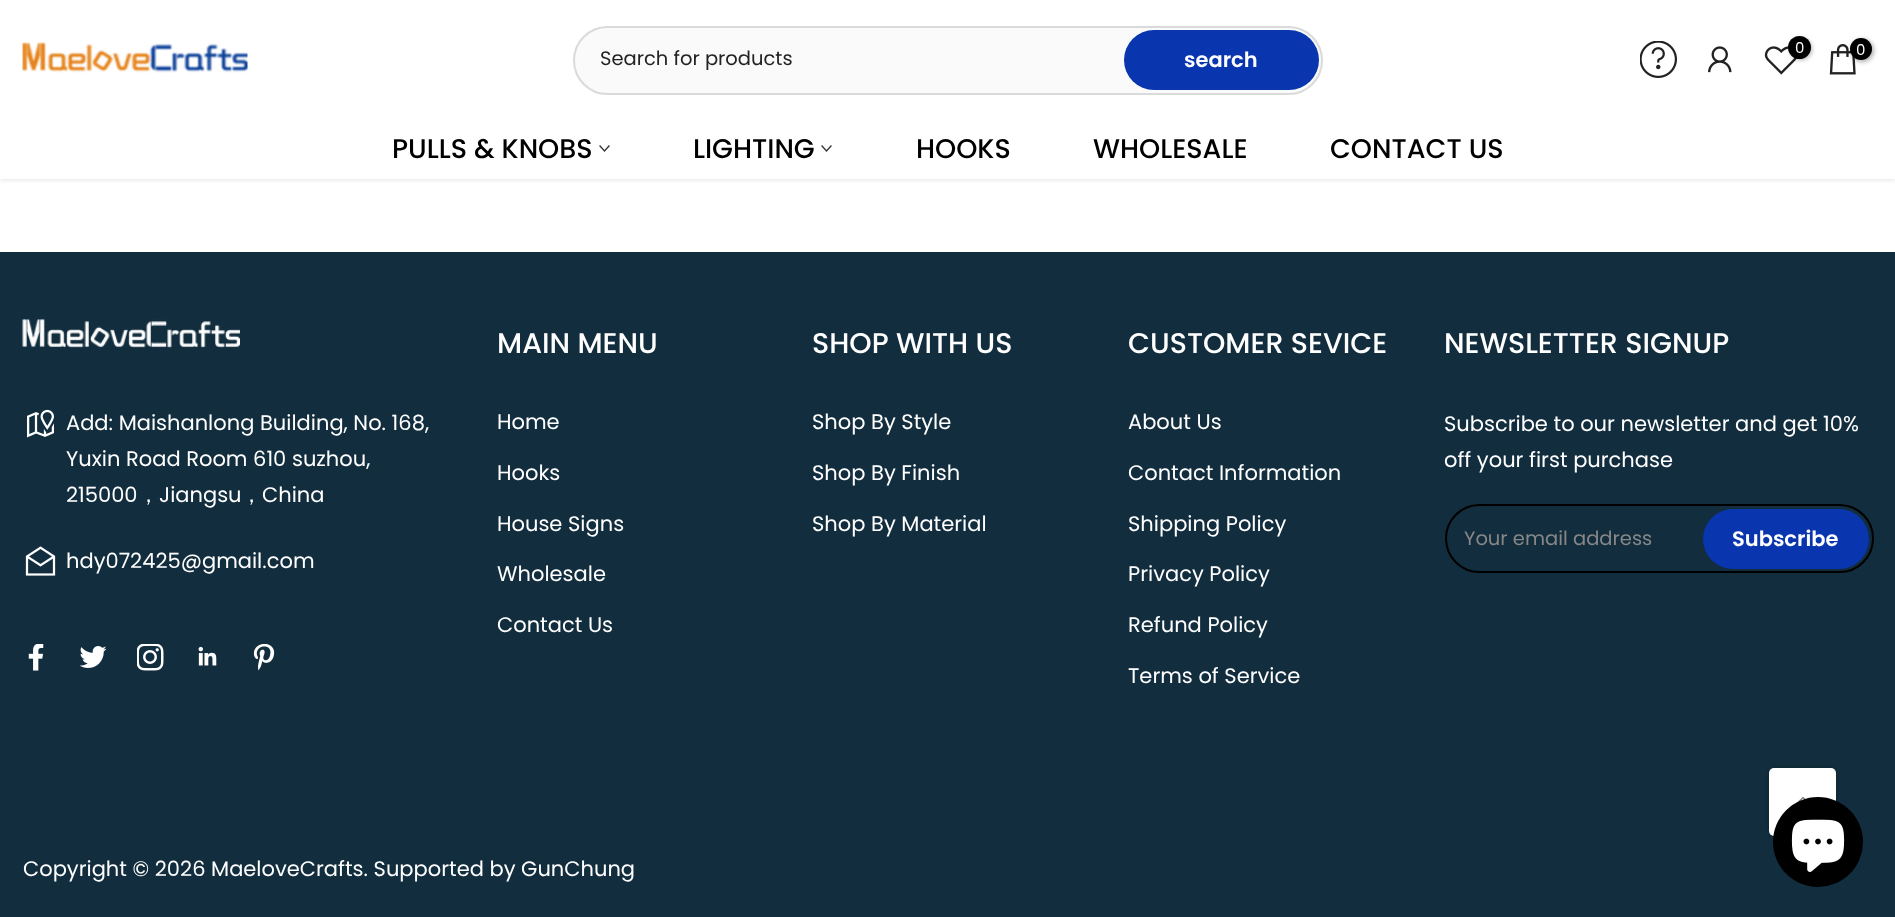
<!DOCTYPE html>
<meta charset="utf-8">
<style>body { margin: 0 } canvas { display: block }</style>
<canvas id="canvas" width="1895" height="917"></canvas>
<img id="img1" src="img_01.png" hidden>
<img id="img2" src="img_02.png" hidden>
<img id="img3" src="img_03.png" hidden>
<img id="img4" src="img_04.png" hidden>
<img id="img5" src="img_05.png" hidden>
<img id="img6" src="img_06.png" hidden>
<img id="img7" src="img_07.png" hidden>
<img id="img8" src="img_08.png" hidden>
<img id="img9" src="img_09.png" hidden>
<img id="img10" src="img_10.png" hidden>
<img id="img11" src="img_11.png" hidden>
<img id="img12" src="img_12.png" hidden>
<img id="img13" src="img_13.png" hidden>
<img id="img14" src="img_14.png" hidden>
<img id="img15" src="img_15.png" hidden>
<script>
window.onload = function () {
	const canvas = document.getElementById("canvas");
	const ctx = canvas.getContext("2d");
	ctx.miterLimit = 4;
	ctx.fontKerning = "normal";
	function txt(s, x, y) {
		ctx.fillText(s, x, y);
	}
	function fill(x, y, w, h) {
		ctx.fillRect(x, y, w, h);
	}
	function round(x, y, w, h, r) {
		ctx.beginPath();
		ctx.roundRect(x, y, w, h, r);
		ctx.fill();
	}
	function img(id, x, y, w, h) {
		ctx.drawImage(document.getElementById(id), x, y, w, h);
	}

	ctx.fillStyle = "#FFFFFF";
	fill(0, 0, 1895, 917);
	ctx.fillStyle = "rgba(0, 0, 0, 0.1)";
	ctx.filter = "blur(2px)";
	ctx.beginPath();
	ctx.rect(0, 2, 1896, 178);
	ctx.fill();
	ctx.filter = "none";
	ctx.fillStyle = "#FFFFFF";
	fill(0, 0, 1895, 179);
	img("img1", 22, 42, 226, 31);
	img("img2", 1640, 41, 37, 37);
	img("img3", 1708, 46, 24, 27);
	img("img4", 1764, 46, 33, 29);
	ctx.fillStyle = "rgba(0, 0, 0, 0.3)";
	ctx.filter = "blur(2px)";
	ctx.beginPath();
	ctx.roundRect(1790, 38, 22, 22, 11);
	ctx.fill();
	ctx.filter = "none";
	ctx.fillStyle = "#000000";
	ctx.beginPath();
	ctx.arc(1799.5, 47.5, 11.5, 0, Math.PI * 2);
	ctx.fill();
	img("img5", 1829, 44, 27, 31);
	ctx.fillStyle = "rgba(0, 0, 0, 0.3)";
	ctx.filter = "blur(2px)";
	ctx.beginPath();
	ctx.roundRect(1851, 39, 23, 23, 11.5);
	ctx.fill();
	ctx.filter = "none";
	ctx.fillStyle = "#000000";
	ctx.beginPath();
	ctx.arc(1861, 49, 11, 0, Math.PI * 2);
	ctx.fill();
	ctx.fillStyle = "#FAFAFA";
	ctx.beginPath();
	ctx.roundRect(574, 27, 748, 67, 33.5);
	ctx.fill();
	ctx.strokeStyle = "#DADADA";
	ctx.lineWidth = 2;
	ctx.stroke();
	ctx.fillStyle = "#0935AF";
	round(1124, 30, 195, 60, 30);
	ctx.beginPath();
	ctx.moveTo(609, 146);
	ctx.lineTo(604.5, 151);
	ctx.lineTo(600, 146);
	ctx.strokeStyle = "#333333";
	ctx.lineWidth = 1.3;
	ctx.lineCap = "square";
	ctx.stroke();
	ctx.beginPath();
	ctx.moveTo(831, 146);
	ctx.lineTo(826.5, 151);
	ctx.lineTo(822, 146);
	ctx.stroke();
	ctx.fillStyle = "#122D3D";
	fill(0, 252, 1895, 665);
	img("img6", 22, 319, 218, 29);
	img("img7", 27, 409, 27, 29);
	img("img8", 25, 546, 31, 30);
	img("img9", 28, 644, 16, 27);
	img("img10", 80, 646, 27, 22);
	img("img11", 137, 644, 27, 27);
	img("img12", 198, 646, 19, 20);
	img("img13", 253, 644, 22, 27);
	ctx.beginPath();
	ctx.roundRect(1446, 505, 427, 67, 33.5);
	ctx.strokeStyle = "#000000";
	ctx.lineWidth = 2;
	ctx.stroke();
	ctx.fillStyle = "#0935AF";
	round(1703, 509, 166, 60, 30);
	ctx.fillStyle = "rgba(0, 0, 0, 0.2)";
	ctx.filter = "blur(2px)";
	ctx.beginPath();
	ctx.roundRect(1769, 768, 67, 68, 5);
	ctx.fill();
	ctx.filter = "none";
	ctx.fillStyle = "#FFFFFF";
	round(1769, 768, 67, 68, 5);
	img("img14", 1795, 797, 11, 7);
	ctx.fillStyle = "#000000";
	ctx.beginPath();
	ctx.arc(1818, 842, 45, 0, Math.PI * 2);
	ctx.fill();
	img("img15", 1791, 819, 54, 53);
	ctx.font = "15px Poppins";
	ctx.fillStyle = "#FFFFFF";
	txt("0", 1795, 53);
	txt("0", 1856, 55);
	ctx.font = "19.5px Poppins";
	ctx.fillStyle = "#222222";
	txt("Search for products", 600, 65);
	ctx.font = "600 21px Poppins";
	ctx.fillStyle = "#FFFFFF";
	txt("search", 1184, 67);
	ctx.font = "500 27px Poppins";
	ctx.fillStyle = "#000000";
	txt("PULLS & KNOBS", 392, 158);
	txt("LIGHTING", 693, 158);
	txt("HOOKS", 916, 158);
	txt("WHOLESALE", 1093, 158);
	txt("CONTACT US", 1330, 158);
	ctx.font = "21px Poppins";
	ctx.fillStyle = "#FFFFFF";
	txt("Add: Maishanlong Building, No. 168,", 66, 430);
	txt("Yuxin Road Room 610 suzhou,", 66, 466);
	txt("215000", 66, 502);
	ctx.font = "500 21px WenQuanYi Zen Hei";
	txt("，", 138, 502);
	ctx.font = "21px Poppins";
	txt("Jiangsu", 159, 502);
	ctx.font = "500 21px WenQuanYi Zen Hei";
	txt("，", 241, 502);
	ctx.font = "21px Poppins";
	txt("China", 262, 502);
	txt("hdy072425@gmail.com", 66, 568);
	ctx.font = "500 28.5px Poppins";
	txt("MAIN MENU", 497, 353);
	ctx.font = "21px Poppins";
	txt("Home", 497, 429);
	txt("Hooks", 497, 480);
	txt("House Signs", 497, 531);
	txt("Wholesale", 497, 581);
	txt("Contact Us", 497, 632);
	ctx.font = "500 28.5px Poppins";
	txt("SHOP WITH US", 812, 353);
	ctx.font = "21px Poppins";
	txt("Shop By Style", 812, 429);
	txt("Shop By Finish", 812, 480);
	txt("Shop By Material", 812, 531);
	ctx.font = "500 28.5px Poppins";
	txt("CUSTOMER SEVICE", 1128, 353);
	ctx.font = "21px Poppins";
	txt("About Us", 1128, 429);
	txt("Contact Information", 1128, 480);
	txt("Shipping Policy", 1128, 531);
	txt("Privacy Policy", 1128, 581);
	txt("Refund Policy", 1128, 632);
	txt("Terms of Service", 1128, 683);
	ctx.font = "500 28.5px Poppins";
	txt("NEWSLETTER SIGNUP", 1444, 353);
	ctx.font = "21px Poppins";
	txt("Subscribe to our newsletter and get 10%", 1444, 431);
	txt("off your first purchase", 1444, 467);
	ctx.font = "19.5px Poppins";
	ctx.fillStyle = "#878787";
	txt("Your email address", 1464, 545);
	ctx.font = "600 21px Poppins";
	ctx.fillStyle = "#FFFFFF";
	txt("Subscribe", 1732, 546);
	ctx.font = "21px Poppins";
	txt("Copyright © 2026 MaeloveCrafts. Supported by GunChung", 23, 876);
};
</script>
